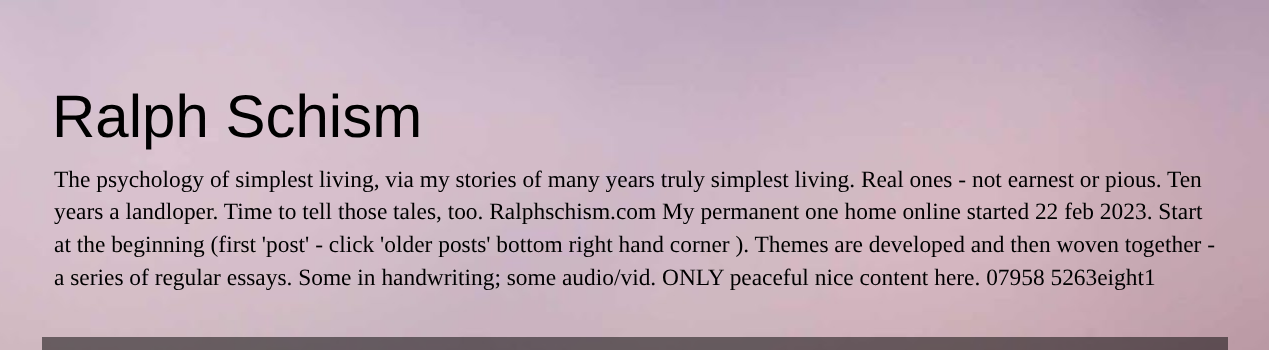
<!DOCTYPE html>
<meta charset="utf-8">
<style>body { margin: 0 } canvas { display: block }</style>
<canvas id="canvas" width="1269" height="350"></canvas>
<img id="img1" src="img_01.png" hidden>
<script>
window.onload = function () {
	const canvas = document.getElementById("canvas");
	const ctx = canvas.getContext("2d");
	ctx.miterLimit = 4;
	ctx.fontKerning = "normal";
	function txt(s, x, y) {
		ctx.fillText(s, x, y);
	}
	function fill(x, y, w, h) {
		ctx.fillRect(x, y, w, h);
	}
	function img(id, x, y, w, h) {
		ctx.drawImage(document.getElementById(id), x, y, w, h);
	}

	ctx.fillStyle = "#FFFFFF";
	fill(0, 0, 1269, 350);
	img("img1", 0, 0, 1269, 350);
	ctx.fillStyle = "rgba(0, 0, 0, 0.5)";
	fill(42, 337, 1186, 13);
	ctx.font = "60px Liberation Sans";
	ctx.fillStyle = "#000000";
	txt("Ralph Schism", 52, 137);
	ctx.font = "23.4px Liberation Serif";
	txt("The psychology of simplest living, via my stories of many years truly simplest living. Real ones - not earnest or pious. Ten", 54, 187);
	txt("years a landloper. Time to tell those tales, too. Ralphschism.com My permanent one home online started 22 feb 2023. Start", 54, 219);
	txt("at the beginning (first 'post' - click 'older posts' bottom right hand corner ). Themes are developed and then woven together -", 54, 252);
	txt("a series of regular essays. Some in handwriting; some audio/vid. ONLY peaceful nice content here. 07958 5263eight1", 54, 285);
};
</script>
